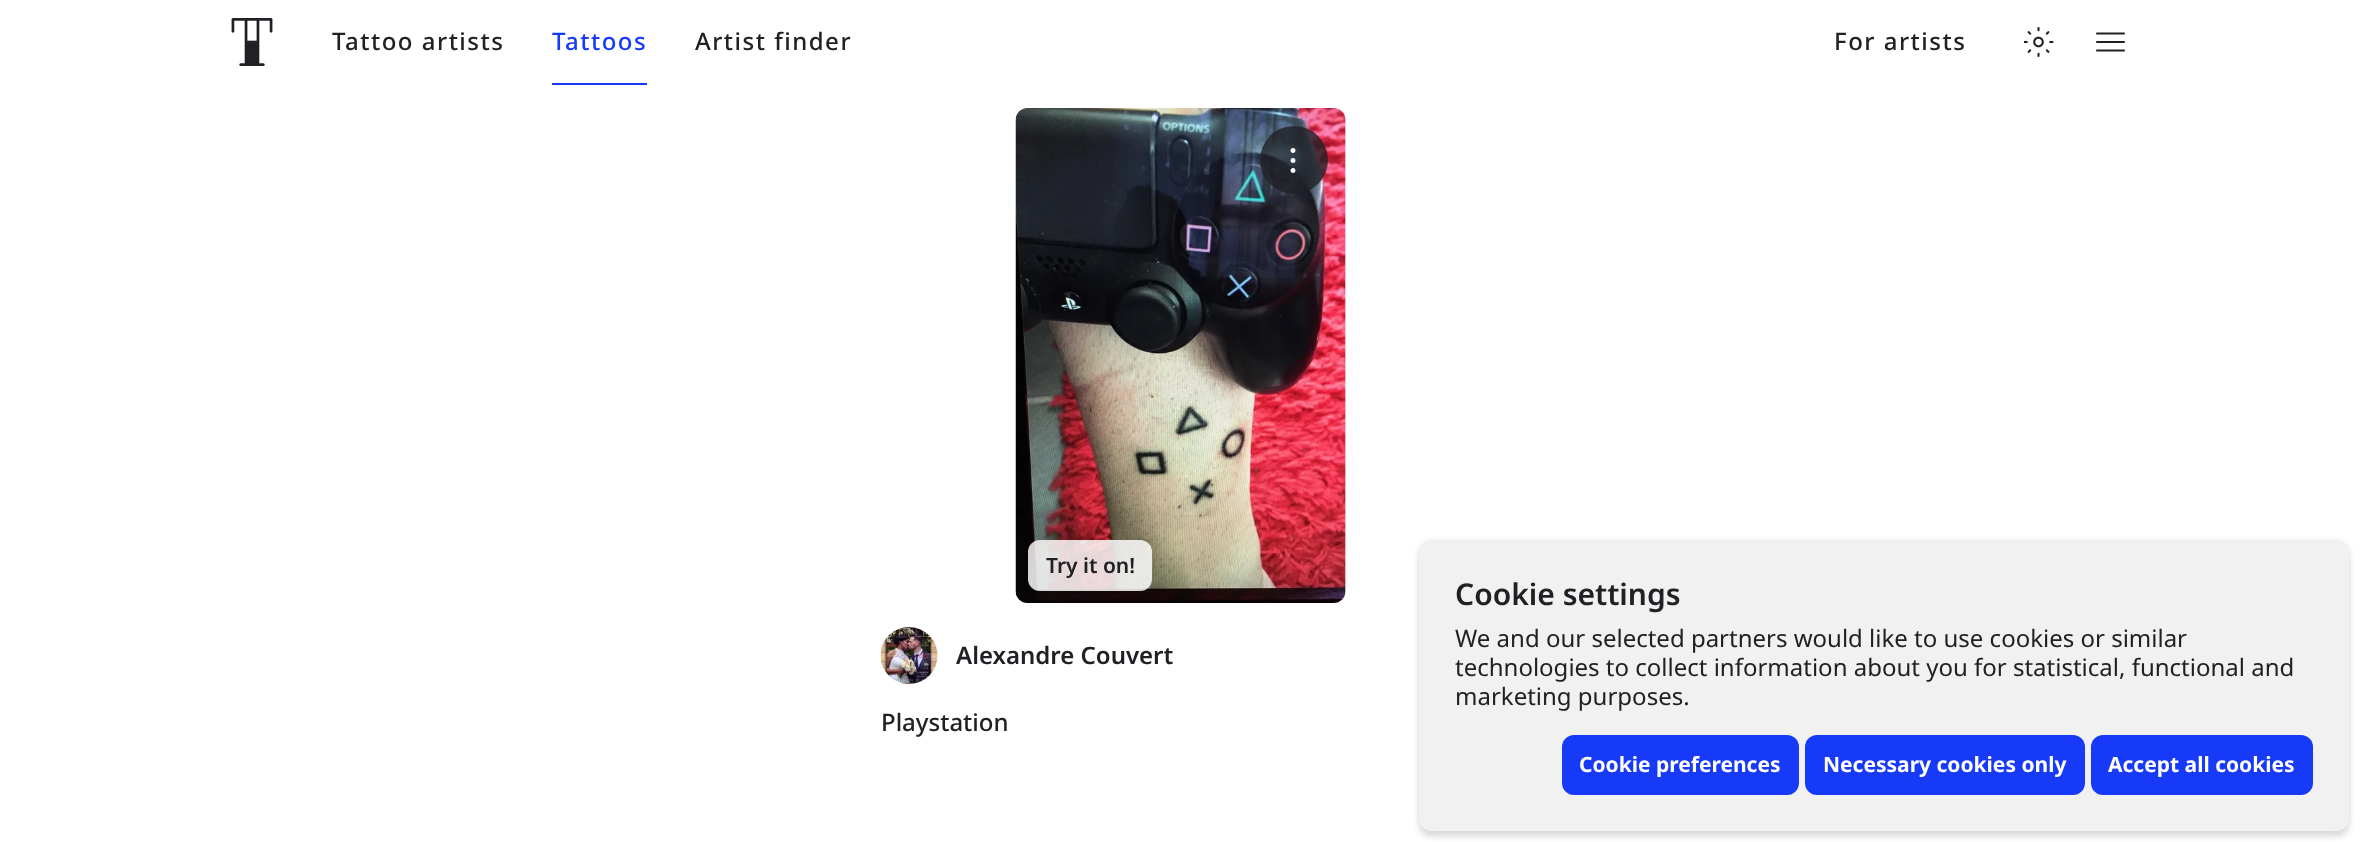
<!DOCTYPE html>
<meta charset="utf-8">
<style>body { margin: 0 } canvas { display: block }</style>
<canvas id="canvas" width="2361" height="842"></canvas>
<img id="img1" src="img_01.png" hidden>
<img id="img2" src="img_02.png" hidden>
<img id="img3" src="img_03.png" hidden>
<img id="img4" src="img_04.png" hidden>
<img id="img5" src="img_05.png" hidden>
<script>
window.onload = function () {
	const canvas = document.getElementById("canvas");
	const ctx = canvas.getContext("2d");
	ctx.miterLimit = 4;
	ctx.fontKerning = "normal";
	function txt(s, x, y) {
		ctx.fillText(s, x, y);
	}
	function fill(x, y, w, h) {
		ctx.fillRect(x, y, w, h);
	}
	function round(x, y, w, h, r) {
		ctx.beginPath();
		ctx.roundRect(x, y, w, h, r);
		ctx.fill();
	}
	function img(id, x, y, w, h) {
		ctx.drawImage(document.getElementById(id), x, y, w, h);
	}
	let gradient;

	ctx.fillStyle = "#FFFFFF";
	fill(0, 0, 2361, 842);
	img("img1", 231, 18, 42, 48);
	ctx.fillStyle = "#173AF8";
	fill(552, 83, 95, 2);
	img("img2", 2024, 27, 30, 30);
	ctx.beginPath();
	ctx.moveTo(2097, 50.5);
	ctx.lineTo(2124, 50.5);
	ctx.moveTo(2097, 42);
	ctx.lineTo(2124, 42);
	ctx.moveTo(2097, 33.5);
	ctx.lineTo(2124, 33.5);
	ctx.strokeStyle = "#202125";
	ctx.lineWidth = 2.1;
	ctx.lineCap = "round";
	ctx.lineJoin = "round";
	ctx.stroke();
	ctx.fillStyle = "#EBEBEB";
	round(1016, 108, 330, 495, 12);
	img("img3", 1015, 108, 331, 495);
	ctx.fillStyle = "rgba(32, 33, 37, 0.8)";
	ctx.beginPath();
	ctx.arc(1294, 160, 34, 0, Math.PI * 2);
	ctx.fill();
	img("img4", 1290, 148, 6, 25);
	ctx.fillStyle = "rgba(255, 255, 255, 0.8)";
	round(1028, 540, 124, 51, 12);
	gradient = ctx.createLinearGradient(744, 432, 1062, 699);
	gradient.addColorStop(0, "rgba(255, 255, 255, 0.19)");
	gradient.addColorStop(0.25, "rgba(255, 255, 255, 0.19)");
	gradient.addColorStop(0.42, "rgba(23, 58, 248, 0.2)");
	gradient.addColorStop(0.58, "rgba(255, 64, 64, 0.2)");
	gradient.addColorStop(0.75, "rgba(255, 255, 255, 0.19)");
	gradient.addColorStop(1, "rgba(255, 255, 255, 0.19)");
	ctx.fillStyle = gradient;
	round(1028, 540, 124, 51, 12);
	ctx.fillStyle = "#F5F6F7";
	ctx.beginPath();
	ctx.arc(909.5, 655.5, 28.5, 0, Math.PI * 2);
	ctx.fill();
	img("img5", 880, 627, 58, 57);
	ctx.fillStyle = "rgba(0, 0, 0, 0.06)";
	ctx.filter = "blur(3px)";
	ctx.beginPath();
	ctx.roundRect(1419, 540, 930, 291, 12);
	ctx.fill();
	ctx.filter = "none";
	ctx.fillStyle = "rgba(0, 0, 0, 0.12)";
	ctx.filter = "blur(3px)";
	ctx.beginPath();
	ctx.roundRect(1419, 546, 930, 291, 12);
	ctx.fill();
	ctx.filter = "none";
	ctx.fillStyle = "#F1F1F1";
	round(1419, 540, 930, 291, 12);
	ctx.fillStyle = "#173AF8";
	round(1562, 735, 237, 60, 12);
	round(1805, 735, 280, 60, 12);
	round(2091, 735, 222, 60, 12);
	ctx.letterSpacing = "1.5px";
	ctx.font = "500 24px Noto Sans";
	ctx.fillStyle = "#202125";
	txt("Tattoo artists", 332, 50);
	ctx.fillStyle = "#173AF8";
	txt("Tattoos", 552, 50);
	ctx.fillStyle = "#202125";
	txt("Artist finder", 695, 50);
	txt("For artists", 1834, 50);
	ctx.letterSpacing = "0px";
	ctx.font = "600 21px Noto Sans";
	txt("Try it on!", 1046, 573);
	ctx.font = "600 24px Noto Sans";
	txt("Alexandre Couvert", 956, 664);
	ctx.font = "500 24px Noto Sans";
	txt("Playstation", 881, 731);
	ctx.font = "600 30px Noto Sans";
	txt("Cookie settings", 1455, 605);
	ctx.font = "24px Noto Sans";
	txt("We and our selected partners would like to use cookies or similar", 1455, 647);
	txt("technologies to collect information about you for statistical, functional and", 1455, 676);
	txt("marketing purposes.", 1455, 705);
	ctx.font = "bold 21px Noto Sans";
	ctx.fillStyle = "#FFFFFF";
	txt("Cookie preferences", 1579, 772);
	txt("Necessary cookies only", 1823, 772);
	txt("Accept all cookies", 2108, 772);
};
</script>
